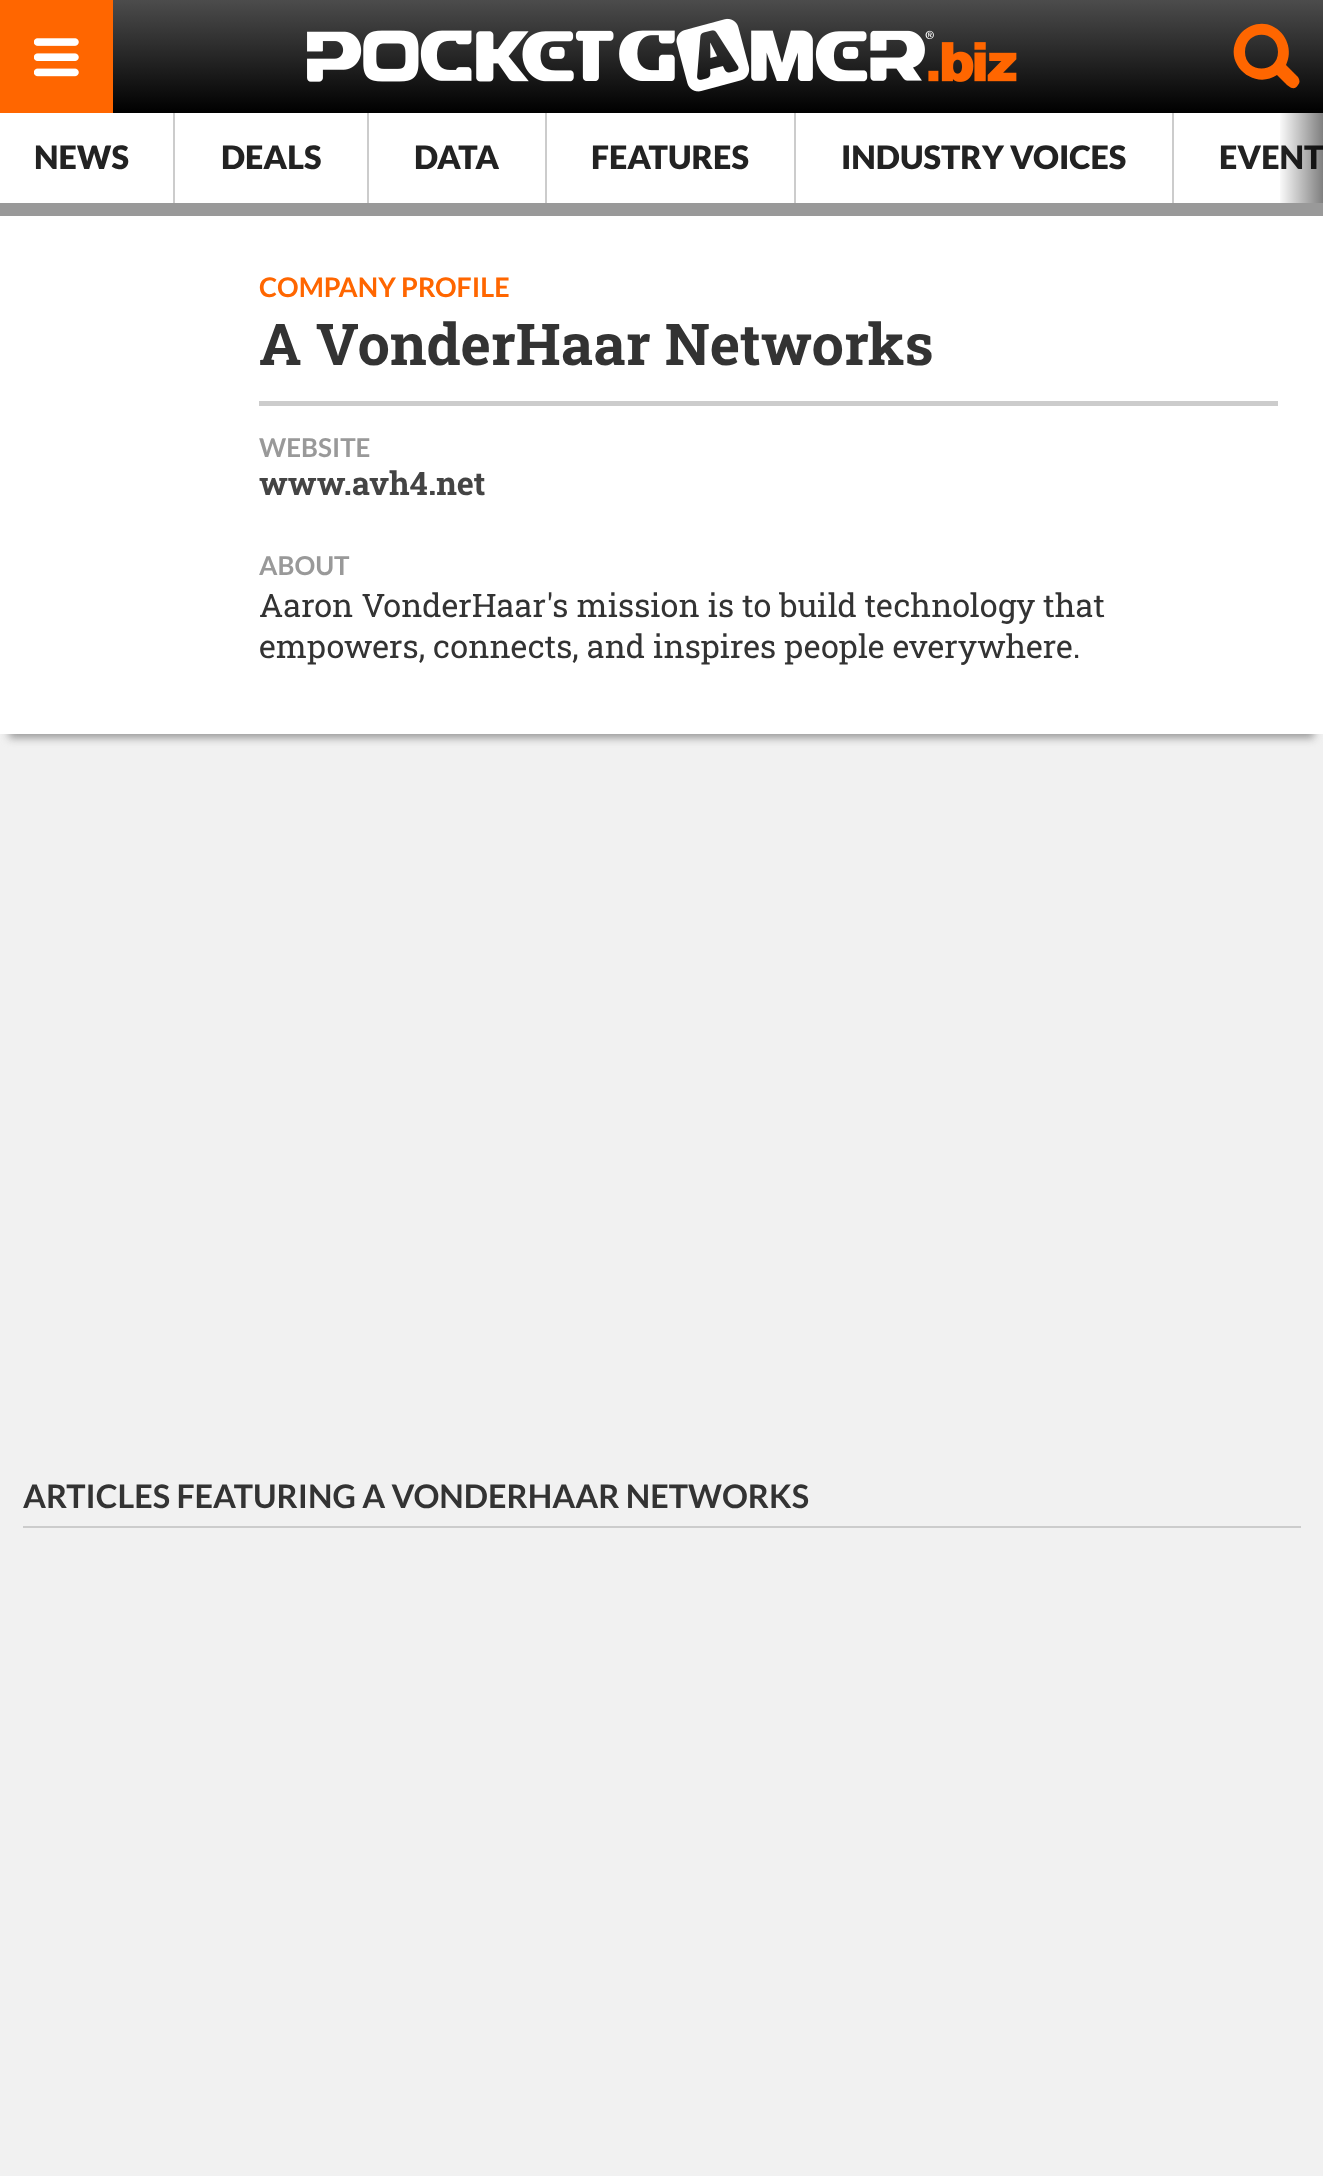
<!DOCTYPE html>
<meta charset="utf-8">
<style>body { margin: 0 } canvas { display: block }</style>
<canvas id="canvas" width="1323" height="2176"></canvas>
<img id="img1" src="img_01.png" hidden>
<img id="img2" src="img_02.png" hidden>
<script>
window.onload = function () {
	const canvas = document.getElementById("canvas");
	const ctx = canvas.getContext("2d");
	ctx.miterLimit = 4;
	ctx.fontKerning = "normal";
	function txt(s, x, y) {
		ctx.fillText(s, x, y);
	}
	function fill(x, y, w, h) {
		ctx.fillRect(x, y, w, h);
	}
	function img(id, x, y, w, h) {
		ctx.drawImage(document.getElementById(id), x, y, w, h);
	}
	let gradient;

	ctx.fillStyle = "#F1F1F1";
	fill(0, 0, 1323, 2176);
	ctx.fillStyle = "#999999";
	ctx.filter = "blur(4.5px)";
	ctx.beginPath();
	ctx.rect(9, 65, 1305, 673);
	ctx.fill();
	ctx.filter = "none";
	fill(0, 203, 1323, 13);
	gradient = ctx.createLinearGradient(662, 113, 662, 0);
	gradient.addColorStop(0, "#000000");
	gradient.addColorStop(1, "#4C4C4C");
	ctx.fillStyle = gradient;
	fill(113, 0, 1210, 113);
	ctx.fillStyle = "#FF6600";
	fill(0, 0, 113, 113);
	img("img1", 34, 38, 45, 39);
	img("img2", 307, 18, 710, 74);
	ctx.beginPath();
	ctx.moveTo(1245, 52);
	ctx.bezierCurveTo(1245, 29, 1278, 29, 1278, 52);
	ctx.bezierCurveTo(1278, 74, 1245, 74, 1245, 52);
	ctx.moveTo(1298, 77);
	ctx.lineTo(1286, 65);
	ctx.bezierCurveTo(1293, 51, 1287, 33, 1272, 26);
	ctx.bezierCurveTo(1266, 23, 1258, 23, 1251, 26);
	ctx.bezierCurveTo(1244, 29, 1239, 34, 1236, 41);
	ctx.bezierCurveTo(1225, 66, 1255, 90, 1277, 75);
	ctx.lineTo(1285, 83);
	ctx.bezierCurveTo(1288, 86, 1294, 92, 1298, 85);
	ctx.bezierCurveTo(1300, 83, 1300, 80, 1298, 77);
	ctx.fill();
	ctx.fillStyle = "#FFFFFF";
	fill(0, 113, 1323, 90);
	ctx.fillStyle = "#CCCCCC";
	fill(173, 113, 2, 90);
	fill(367, 113, 2, 90);
	fill(545, 113, 2, 90);
	fill(794, 113, 2, 90);
	fill(1172, 113, 2, 90);
	ctx.fillStyle = "#FFFFFF";
	fill(0, 216, 1323, 518);
	ctx.fillStyle = "#CCCCCC";
	fill(259, 401, 1019, 5);
	fill(23, 1526, 1278, 2);
	ctx.font = "900 32.4px Lato";
	ctx.fillStyle = "#222222";
	txt("NEWS", 34, 169);
	txt("DEALS", 221, 169);
	txt("DATA", 414, 169);
	txt("FEATURES", 591, 169);
	txt("INDUSTRY VOICES", 841, 169);
	txt("EVENT", 1219, 169);
	gradient = ctx.createLinearGradient(1278, 158, 1323, 158);
	gradient.addColorStop(0, "rgba(0, 0, 0, 0)");
	gradient.addColorStop(1, "rgba(0, 0, 0, 0.5)");
	ctx.fillStyle = gradient;
	fill(1280, 113, 43, 90);
	ctx.font = "bold 27px Lato";
	ctx.fillStyle = "#FF6600";
	txt("COMPANY PROFILE", 259, 297);
	ctx.font = "bold 57.6px Roboto Slab";
	ctx.fillStyle = "#333333";
	txt("A VonderHaar Networks", 259, 365);
	ctx.font = "bold 26px Lato";
	ctx.fillStyle = "#999999";
	txt("WEBSITE", 259, 457);
	ctx.font = "bold 32.4px Roboto Slab";
	ctx.fillStyle = "#444444";
	txt("www.avh4.net", 259, 495);
	ctx.font = "bold 26px Lato";
	ctx.fillStyle = "#999999";
	txt("ABOUT", 259, 575);
	ctx.font = "32.4px Roboto Slab";
	ctx.fillStyle = "#333333";
	txt("Aaron VonderHaar's mission is to build technology that", 259, 617);
	txt("empowers, connects, and inspires people everywhere.", 259, 658);
	ctx.font = "bold 32.4px Lato";
	txt("ARTICLES FEATURING A VONDERHAAR NETWORKS", 23, 1508);
};
</script>
